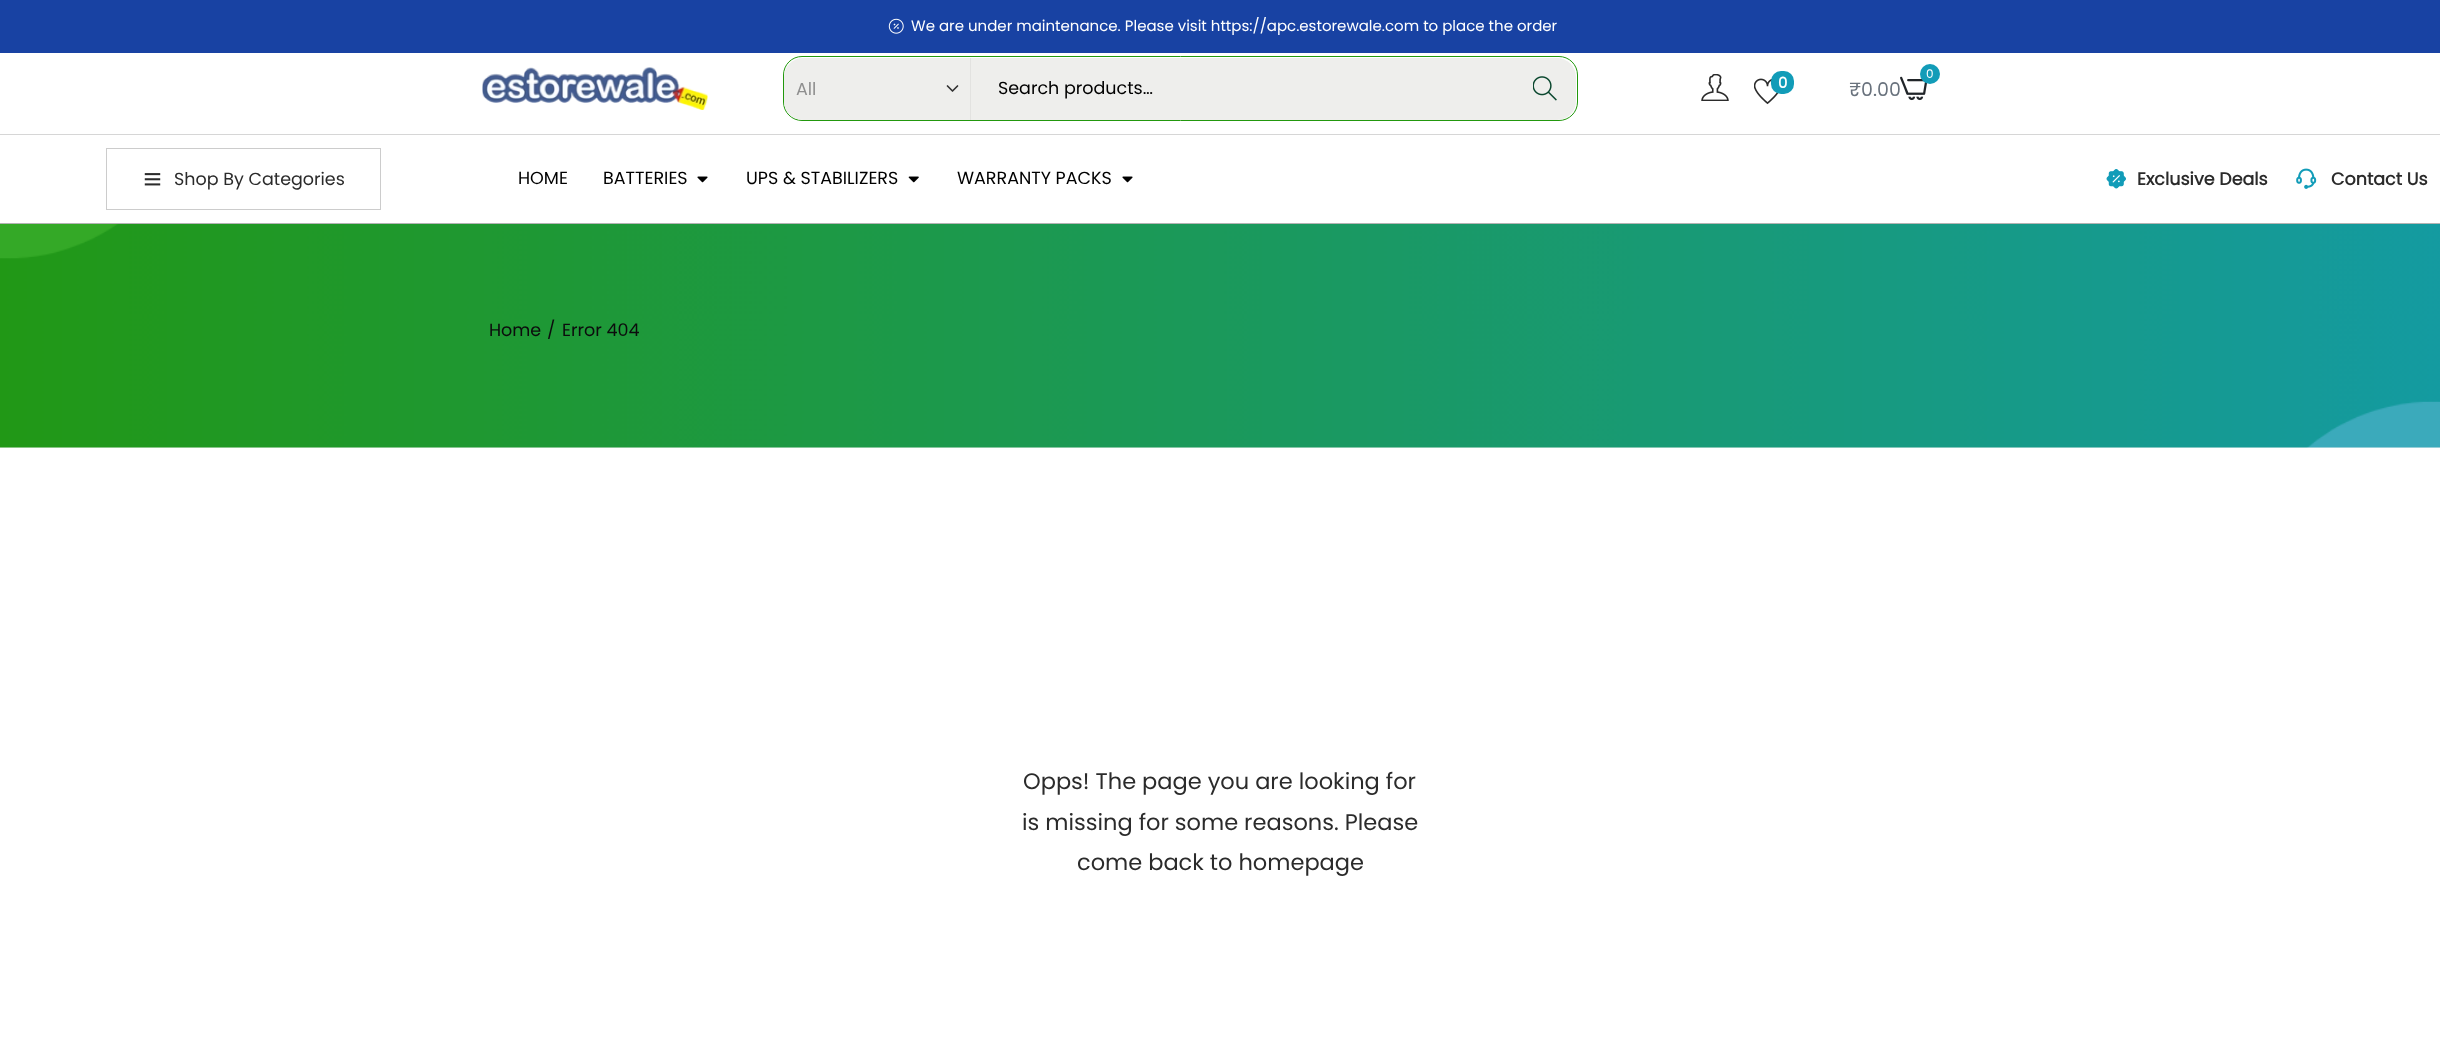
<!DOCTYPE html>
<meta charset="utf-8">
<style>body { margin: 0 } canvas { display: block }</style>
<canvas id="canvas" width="2440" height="1046"></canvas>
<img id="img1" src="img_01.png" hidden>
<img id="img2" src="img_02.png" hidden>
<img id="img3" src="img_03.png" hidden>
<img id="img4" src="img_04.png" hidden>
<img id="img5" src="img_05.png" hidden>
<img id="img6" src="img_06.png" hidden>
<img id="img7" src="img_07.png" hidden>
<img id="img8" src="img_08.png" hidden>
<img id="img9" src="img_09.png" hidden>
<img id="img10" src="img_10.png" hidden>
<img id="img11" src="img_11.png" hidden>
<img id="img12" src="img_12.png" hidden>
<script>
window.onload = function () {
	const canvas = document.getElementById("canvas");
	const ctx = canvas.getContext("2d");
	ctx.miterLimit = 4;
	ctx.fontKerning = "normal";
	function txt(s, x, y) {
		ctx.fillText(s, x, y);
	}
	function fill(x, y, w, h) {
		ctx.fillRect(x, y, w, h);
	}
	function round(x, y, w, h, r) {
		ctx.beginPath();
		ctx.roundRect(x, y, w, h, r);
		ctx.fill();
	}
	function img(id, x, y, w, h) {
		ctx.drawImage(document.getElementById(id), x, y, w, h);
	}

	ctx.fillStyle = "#FFFFFF";
	fill(0, 0, 2440, 1046);
	ctx.fillStyle = "#1842A3";
	fill(0, 0, 2440, 53);
	img("img1", 888, 18, 16, 16);
	ctx.fillStyle = "#D6D6D6";
	fill(0, 134, 2440, 1);
	img("img2", 482, 67, 226, 43);
	ctx.beginPath();
	ctx.roundRect(783.5, 56.5, 794, 64, 18.5);
	ctx.strokeStyle = "#22980D";
	ctx.stroke();
	ctx.fillStyle = "#EEEEEC";
	round(784, 58, 792, 62, 19);
	ctx.fillStyle = "#E2E2E0";
	fill(970, 58, 1, 62);
	ctx.beginPath();
	ctx.moveTo(947.5, 86);
	ctx.lineTo(952.5, 91);
	ctx.lineTo(957.5, 86);
	ctx.strokeStyle = "#333333";
	ctx.lineWidth = 1.7;
	ctx.lineCap = "round";
	ctx.lineJoin = "round";
	ctx.stroke();
	img("img3", 1533, 76, 24, 25);
	img("img4", 1701, 74, 28, 27);
	img("img5", 1754, 78, 25, 27);
	ctx.fillStyle = "#129CB8";
	round(1771, 71, 23, 23, 10);
	img("img6", 1900, 76, 27, 25);
	ctx.beginPath();
	ctx.arc(1930, 74, 10, 0, Math.PI * 2);
	ctx.fill();
	ctx.fillStyle = "#B3B3B3";
	fill(0, 223, 2440, 1);
	ctx.strokeStyle = "#CCCCCC";
	ctx.lineWidth = 1;
	ctx.lineJoin = "miter";
	ctx.strokeRect(106.5, 148.5, 274, 61);
	img("img7", 144, 173, 17, 13);
	img("img8", 697, 176, 11, 7);
	img("img9", 908, 176, 11, 7);
	img("img8", 1122, 176, 11, 7);
	img("img10", 2106, 169, 20, 20);
	img("img11", 2296, 168, 21, 21);
	ctx.fillStyle = "#F2F2F2";
	fill(0, 447, 2440, 1);
	img("img12", 0, 224, 2440, 224);
	ctx.font = "15px Poppins";
	ctx.fillStyle = "#FFFFFF";
	txt("We are under maintenance. Please visit https://apc.estorewale.com to place the order", 911, 31);
	ctx.font = "17.5px Poppins";
	ctx.fillStyle = "#8F8F8F";
	txt("All", 796, 95);
	ctx.fillStyle = "#000000";
	txt("Search products…", 998, 94);
	ctx.font = "bold 15px Poppins";
	ctx.fillStyle = "#FFFFFF";
	txt("0", 1778, 88);
	ctx.font = "12px Poppins";
	txt("0", 1926, 78);
	ctx.font = "19px Poppins";
	ctx.fillStyle = "#69727D";
	txt("₹0.00", 1849, 96);
	ctx.font = "17.5px Poppins";
	ctx.fillStyle = "#2B2B2B";
	txt("Shop By Categories", 174, 185);
	ctx.fillStyle = "#000000";
	txt("HOME", 518, 184);
	txt("BATTERIES", 603, 184);
	txt("UPS & STABILIZERS", 746, 184);
	txt("WARRANTY PACKS", 957, 184);
	ctx.font = "bold 17.5px Poppins";
	ctx.fillStyle = "#2B2B2B";
	txt("Exclusive Deals", 2137, 185);
	txt("Contact Us", 2331, 185);
	ctx.font = "17.5px Poppins";
	ctx.fillStyle = "#0C0C0D";
	txt("Home", 489, 336);
	txt("/", 547, 336);
	txt("Error 404", 562, 336);
	ctx.font = "22.5px Poppins";
	ctx.fillStyle = "#2B2B2B";
	txt("Opps! The page you are looking for", 1023, 789);
	txt("is missing for some reasons. Please", 1022, 830);
	txt("come back to homepage", 1077, 870);
};
</script>
